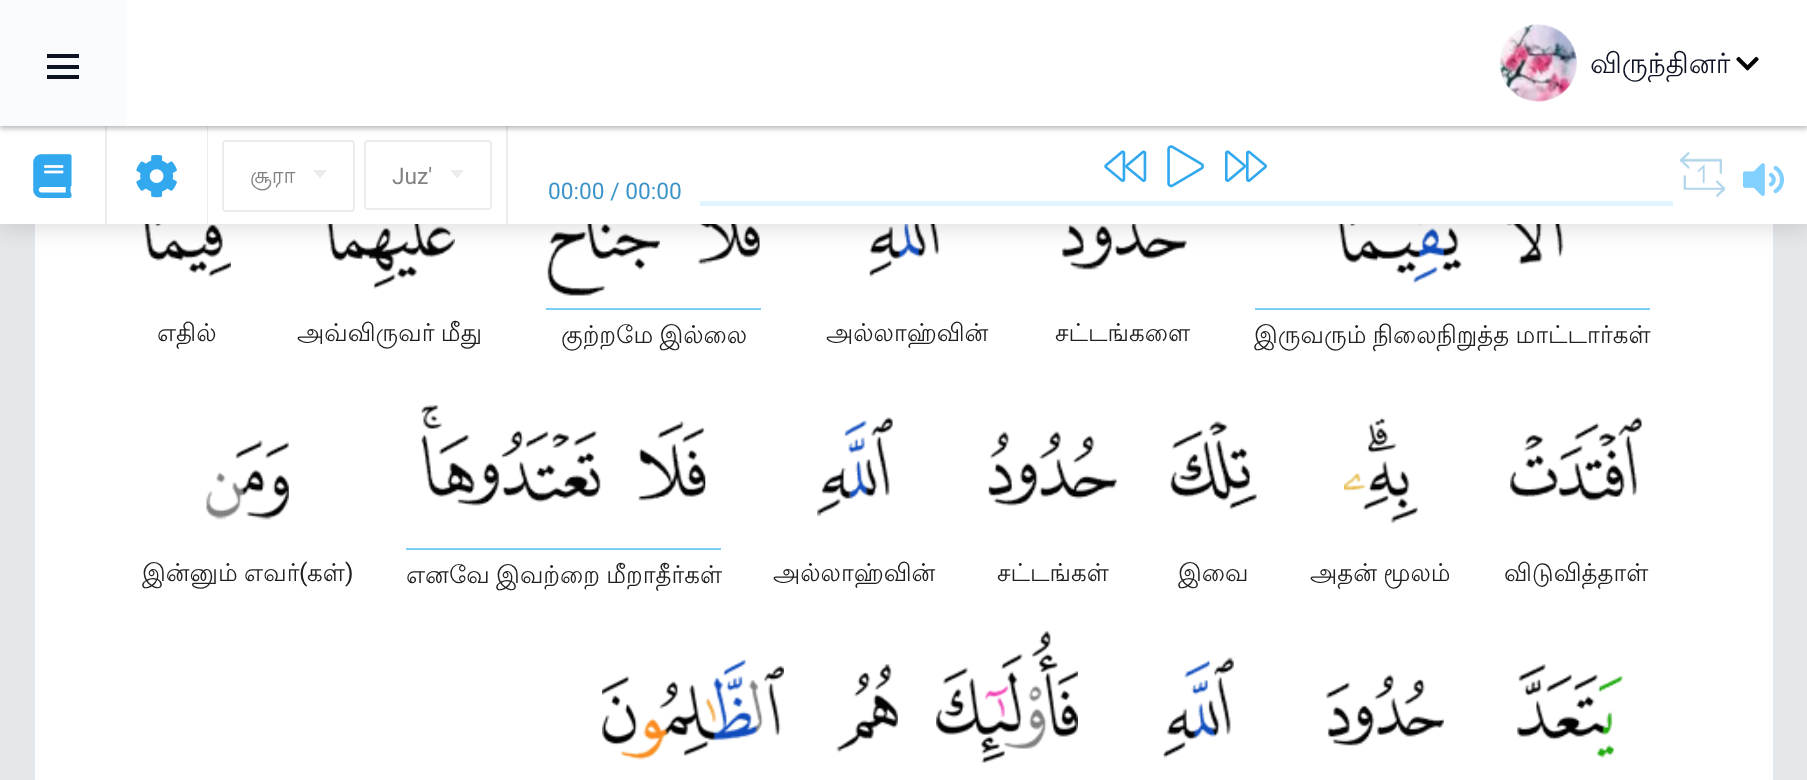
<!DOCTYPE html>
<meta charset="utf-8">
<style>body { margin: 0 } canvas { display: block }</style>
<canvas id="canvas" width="1807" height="780"></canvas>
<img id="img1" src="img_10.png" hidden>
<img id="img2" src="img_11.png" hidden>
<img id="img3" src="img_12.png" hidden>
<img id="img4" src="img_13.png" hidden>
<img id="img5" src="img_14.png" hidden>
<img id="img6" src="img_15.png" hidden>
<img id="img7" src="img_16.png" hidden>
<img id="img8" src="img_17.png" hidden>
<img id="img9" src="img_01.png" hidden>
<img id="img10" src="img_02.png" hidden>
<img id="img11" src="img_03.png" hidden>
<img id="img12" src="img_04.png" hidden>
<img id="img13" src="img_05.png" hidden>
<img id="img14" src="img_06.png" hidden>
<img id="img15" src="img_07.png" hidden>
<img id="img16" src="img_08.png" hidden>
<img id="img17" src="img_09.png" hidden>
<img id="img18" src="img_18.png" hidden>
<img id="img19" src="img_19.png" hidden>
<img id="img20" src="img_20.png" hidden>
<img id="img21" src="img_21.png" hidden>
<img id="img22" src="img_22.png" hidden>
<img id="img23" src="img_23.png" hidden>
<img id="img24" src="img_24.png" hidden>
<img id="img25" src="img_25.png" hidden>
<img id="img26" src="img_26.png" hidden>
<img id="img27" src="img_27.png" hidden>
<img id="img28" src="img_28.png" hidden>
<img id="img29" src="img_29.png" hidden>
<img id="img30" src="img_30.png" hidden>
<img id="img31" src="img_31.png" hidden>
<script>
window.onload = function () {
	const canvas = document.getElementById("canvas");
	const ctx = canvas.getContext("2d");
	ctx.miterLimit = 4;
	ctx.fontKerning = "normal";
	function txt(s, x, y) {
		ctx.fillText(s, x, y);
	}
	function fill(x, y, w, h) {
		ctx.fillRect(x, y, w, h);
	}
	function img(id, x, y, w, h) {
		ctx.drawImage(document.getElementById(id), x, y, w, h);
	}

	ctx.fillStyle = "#E5E8EB";
	fill(0, 0, 1807, 780);
	ctx.fillStyle = "#FFFFFF";
	fill(35, 224, 1738, 556);
	img("img1", 143, 224, 88, 53);
	img("img2", 326, 224, 129, 65);
	img("img3", 547, 224, 113, 72);
	img("img4", 698, 224, 62, 41);
	img("img5", 869, 224, 72, 53);
	img("img6", 1061, 224, 126, 46);
	img("img7", 1338, 224, 124, 60);
	img("img8", 1506, 224, 58, 41);
	ctx.fillStyle = "rgba(0, 0, 0, 0.15)";
	ctx.filter = "blur(13px)";
	ctx.beginPath();
	ctx.rect(-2, 124, 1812, 102);
	ctx.fill();
	ctx.filter = "none";
	ctx.fillStyle = "#FFFFFF";
	fill(0, 126, 1807, 98);
	ctx.fillStyle = "#ECECEC";
	fill(207, 126, 1, 98);
	fill(105, 126, 2, 98);
	fill(506, 126, 2, 98);
	ctx.fillStyle = "rgba(0, 0, 0, 0.2)";
	ctx.filter = "blur(2px)";
	ctx.beginPath();
	ctx.rect(0, 2, 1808, 126);
	ctx.fill();
	ctx.filter = "none";
	ctx.fillStyle = "rgba(170, 170, 170, 0.5)";
	ctx.filter = "blur(3.5px)";
	ctx.beginPath();
	ctx.rect(0, 2, 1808, 126);
	ctx.fill();
	ctx.filter = "none";
	ctx.fillStyle = "#FFFFFF";
	fill(126, 0, 1681, 126);
	ctx.fillStyle = "#FAFBFC";
	fill(0, 0, 126, 126);
	ctx.fillStyle = "#0D1322";
	fill(47, 54, 32, 4);
	fill(47, 65, 32, 4);
	fill(47, 75, 32, 4);
	img("img9", 1499, 24, 78, 78);
	img("img10", 1736, 56, 23, 15);
	img("img11", 33, 154, 39, 44);
	img("img12", 136, 154, 41, 44);
	ctx.beginPath();
	ctx.roundRect(223, 141, 131, 70, 3);
	ctx.strokeStyle = "#ECECEC";
	ctx.lineWidth = 2;
	ctx.stroke();
	ctx.fillStyle = "#ECECEC";
	ctx.beginPath();
	ctx.moveTo(313, 170);
	ctx.lineTo(327, 170);
	ctx.lineTo(320, 178.5);
	ctx.closePath();
	ctx.fill();
	ctx.beginPath();
	ctx.roundRect(365, 141, 126, 68, 3);
	ctx.stroke();
	ctx.beginPath();
	ctx.moveTo(450, 170);
	ctx.lineTo(464, 170);
	ctx.lineTo(457, 178.5);
	ctx.closePath();
	ctx.fill();
	img("img13", 1104, 150, 43, 32);
	img("img14", 1167, 145, 37, 43);
	img("img15", 1225, 150, 42, 32);
	ctx.fillStyle = "#E0F5FF";
	fill(700, 201, 973, 5);
	img("img16", 1680, 151, 46, 46);
	img("img17", 1743, 163, 41, 33);
	ctx.fillStyle = "#78CEF3";
	fill(546, 308, 215, 2);
	fill(1255, 308, 395, 2);
	img("img18", 206, 440, 83, 80);
	img("img19", 421, 405, 180, 101);
	img("img20", 638, 421, 68, 80);
	fill(406, 548, 315, 2);
	img("img21", 817, 417, 76, 100);
	img("img22", 988, 431, 129, 75);
	img("img23", 1170, 421, 87, 89);
	img("img24", 1344, 417, 74, 107);
	img("img25", 1510, 417, 132, 84);
	img("img26", 602, 659, 182, 101);
	img("img27", 836, 664, 62, 89);
	img("img28", 936, 630, 142, 133);
	img("img29", 1163, 657, 71, 101);
	img("img30", 1326, 674, 118, 72);
	img("img31", 1517, 664, 106, 94);
	ctx.font = "28px Lohit Tamil";
	ctx.fillStyle = "#0D1322";
	txt("விருந்தினர்", 1590, 73);
	ctx.font = "22.75px Lohit Tamil";
	ctx.fillStyle = "#828282";
	txt("சூரா", 250, 183);
	ctx.font = "22.75px Roboto";
	txt("Juz'", 392, 184);
	ctx.fillStyle = "#3993C9";
	txt("00:00 / 00:00", 548, 199);
	ctx.font = "24.5px Lohit Tamil";
	ctx.fillStyle = "#202020";
	txt("எதில்", 157, 341);
	ctx.wordSpacing = "-1px";
	txt("அவ்விருவர் மீது", 297, 341);
	txt("குற்றமே இல்லை", 561, 343);
	ctx.wordSpacing = "0px";
	txt("அல்லாஹ்வின்", 826, 341);
	txt("சட்டங்களை", 1055, 341);
	ctx.wordSpacing = "-1px";
	txt("இருவரும் நிலைநிறுத்த மாட்டார்கள்", 1254, 343);
	txt("இன்னும் எவர்", 142, 581);
	ctx.wordSpacing = "0px";
	ctx.font = "24.5px Roboto";
	txt("(", 299, 581);
	ctx.font = "24.5px Lohit Tamil";
	txt("கள்", 307, 581);
	ctx.font = "24.5px Roboto";
	txt(")", 345, 581);
	ctx.wordSpacing = "-1px";
	ctx.font = "24.5px Lohit Tamil";
	txt("எனவே இவற்றை மீறாதீர்கள்", 406, 583);
	ctx.wordSpacing = "0px";
	txt("அல்லாஹ்வின்", 773, 581);
	txt("சட்டங்கள்", 997, 581);
	txt("இவை", 1178, 581);
	ctx.wordSpacing = "-1px";
	txt("அதன் மூலம்", 1310, 581);
	ctx.wordSpacing = "0px";
	txt("விடுவித்தாள்", 1504, 581);
};
</script>
